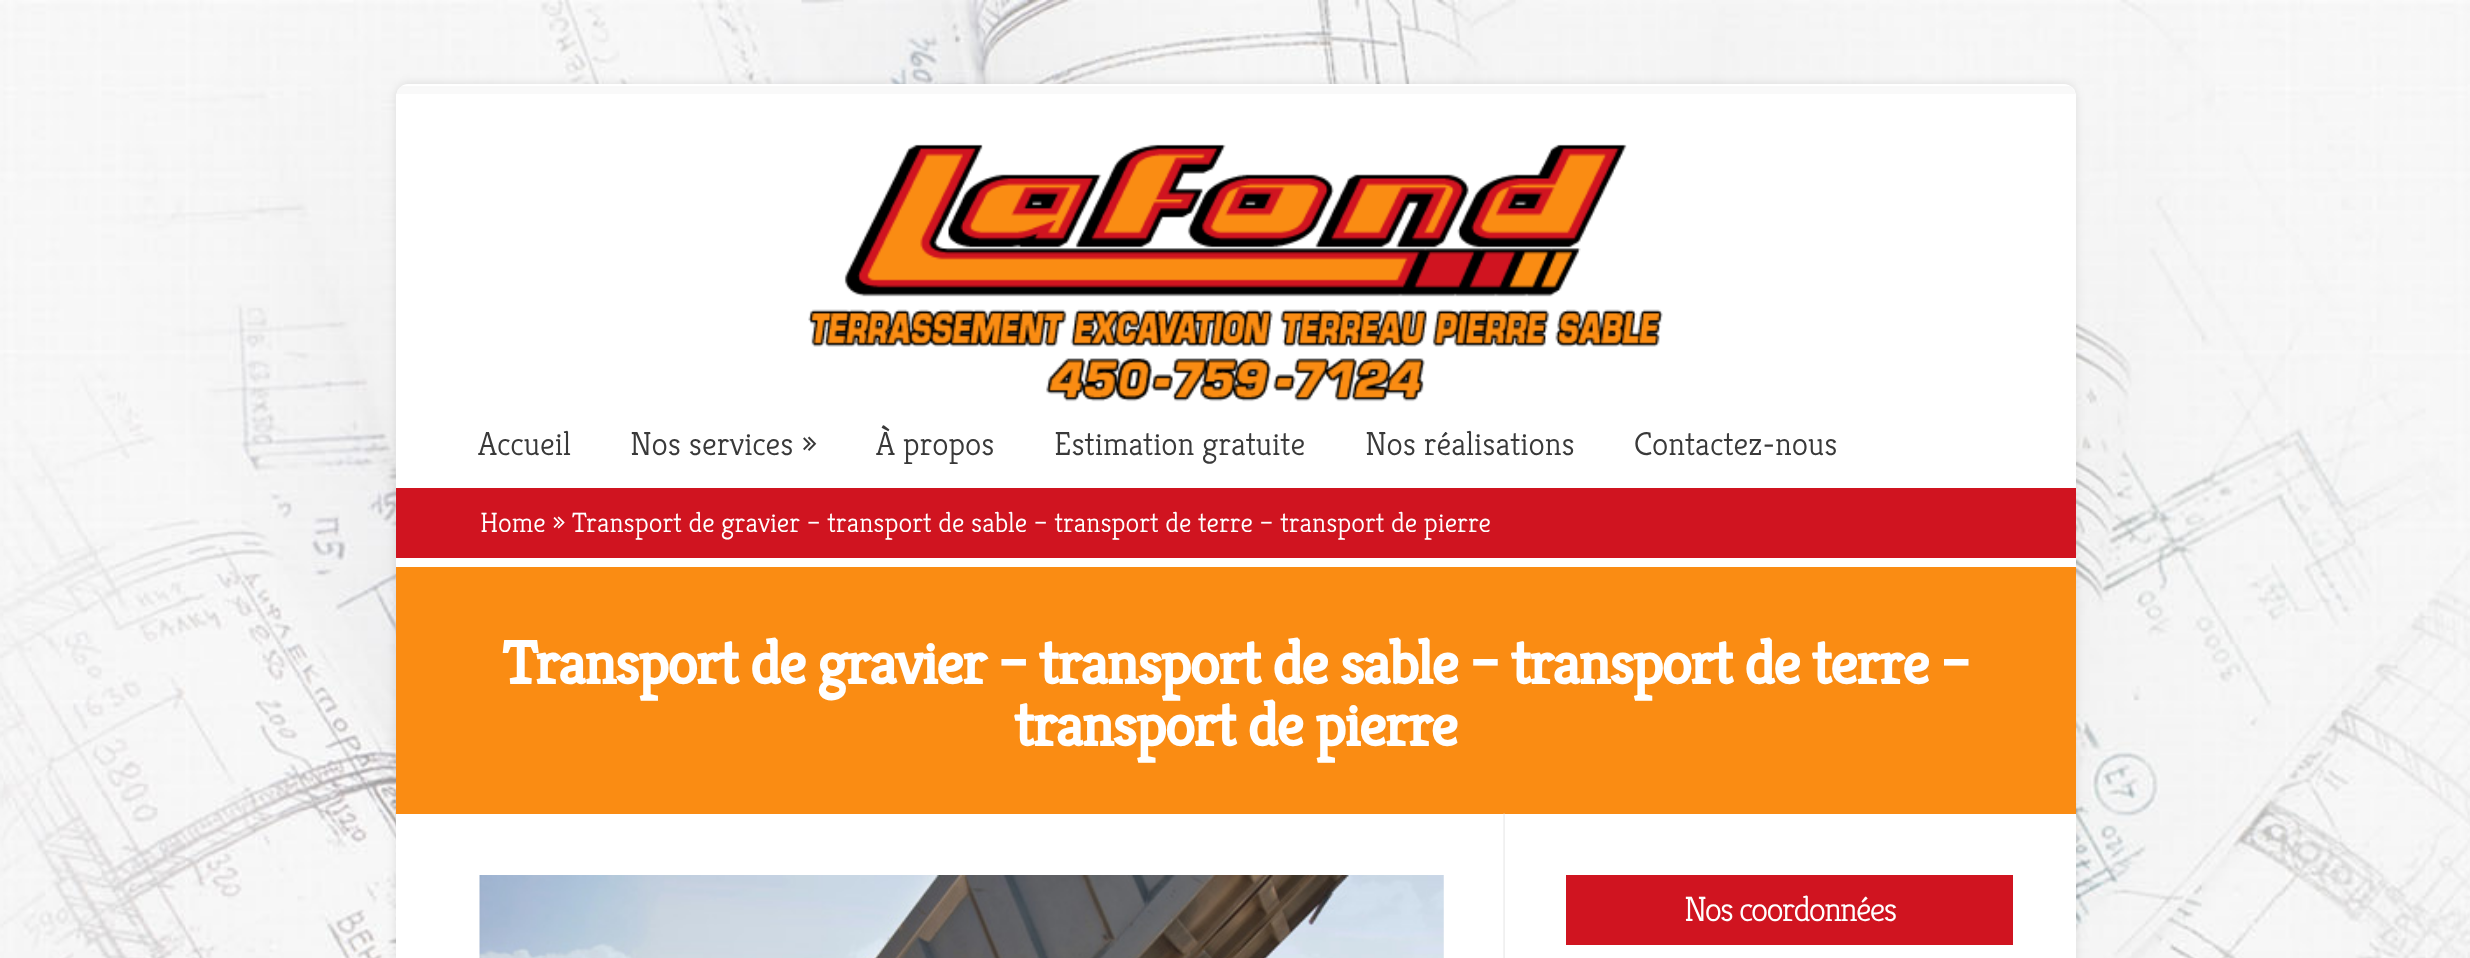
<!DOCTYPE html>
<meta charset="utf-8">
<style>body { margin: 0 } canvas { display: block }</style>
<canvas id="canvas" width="2470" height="958"></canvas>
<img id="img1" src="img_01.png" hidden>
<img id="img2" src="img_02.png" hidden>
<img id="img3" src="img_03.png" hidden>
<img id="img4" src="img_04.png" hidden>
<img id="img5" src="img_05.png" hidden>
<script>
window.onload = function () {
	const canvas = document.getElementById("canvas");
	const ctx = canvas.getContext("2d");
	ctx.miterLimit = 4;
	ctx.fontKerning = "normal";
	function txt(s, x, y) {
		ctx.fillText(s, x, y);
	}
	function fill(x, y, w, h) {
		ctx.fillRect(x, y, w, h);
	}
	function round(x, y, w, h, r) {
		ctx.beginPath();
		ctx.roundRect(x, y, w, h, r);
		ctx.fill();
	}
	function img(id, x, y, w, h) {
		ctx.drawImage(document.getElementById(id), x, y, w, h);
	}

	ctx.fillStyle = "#FFFFFF";
	fill(0, 0, 2470, 958);
	img("img1", 0, 0, 2470, 958);
	ctx.fillStyle = "rgba(0, 0, 0, 0.1)";
	ctx.filter = "blur(5px)";
	ctx.beginPath();
	ctx.roundRect(396, 84, 1680, 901, 12);
	ctx.fill();
	ctx.filter = "none";
	ctx.fillStyle = "#FFFFFF";
	round(396, 84, 1680, 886, 12);
	img("img2", 396, 86, 1679, 8);
	img("img3", 808, 144, 855, 258);
	ctx.fillStyle = "#D01420";
	fill(396, 488, 1680, 70);
	ctx.fillStyle = "#FA8C13";
	fill(396, 567, 1680, 247);
	img("img4", 1503, 813, 2, 145);
	img("img5", 479, 875, 965, 83);
	ctx.fillStyle = "#D01420";
	fill(1566, 875, 447, 70);
	ctx.font = "300 33.25px Kreon";
	ctx.fillStyle = "#393939";
	txt("Accueil", 478, 455);
	txt("Nos services »", 630, 455);
	txt("À propos", 876, 455);
	txt("Estimation gratuite", 1054, 455);
	txt("Nos réalisations", 1365, 455);
	txt("Contactez-nous", 1634, 455);
	ctx.font = "300 28px Kreon";
	ctx.fillStyle = "#FFFFFF";
	txt("Home » Transport de gravier – transport de sable – transport de terre – transport de pierre", 480, 532);
	ctx.letterSpacing = "-1.75px";
	ctx.font = "bold 61.25px Kreon";
	txt("Transport de gravier – transport de sable – transport de terre –", 502, 684);
	txt("transport de pierre", 1014, 746);
	ctx.font = "300 35px Kreon";
	txt("Nos coordonnées", 1684, 921);
};
</script>
